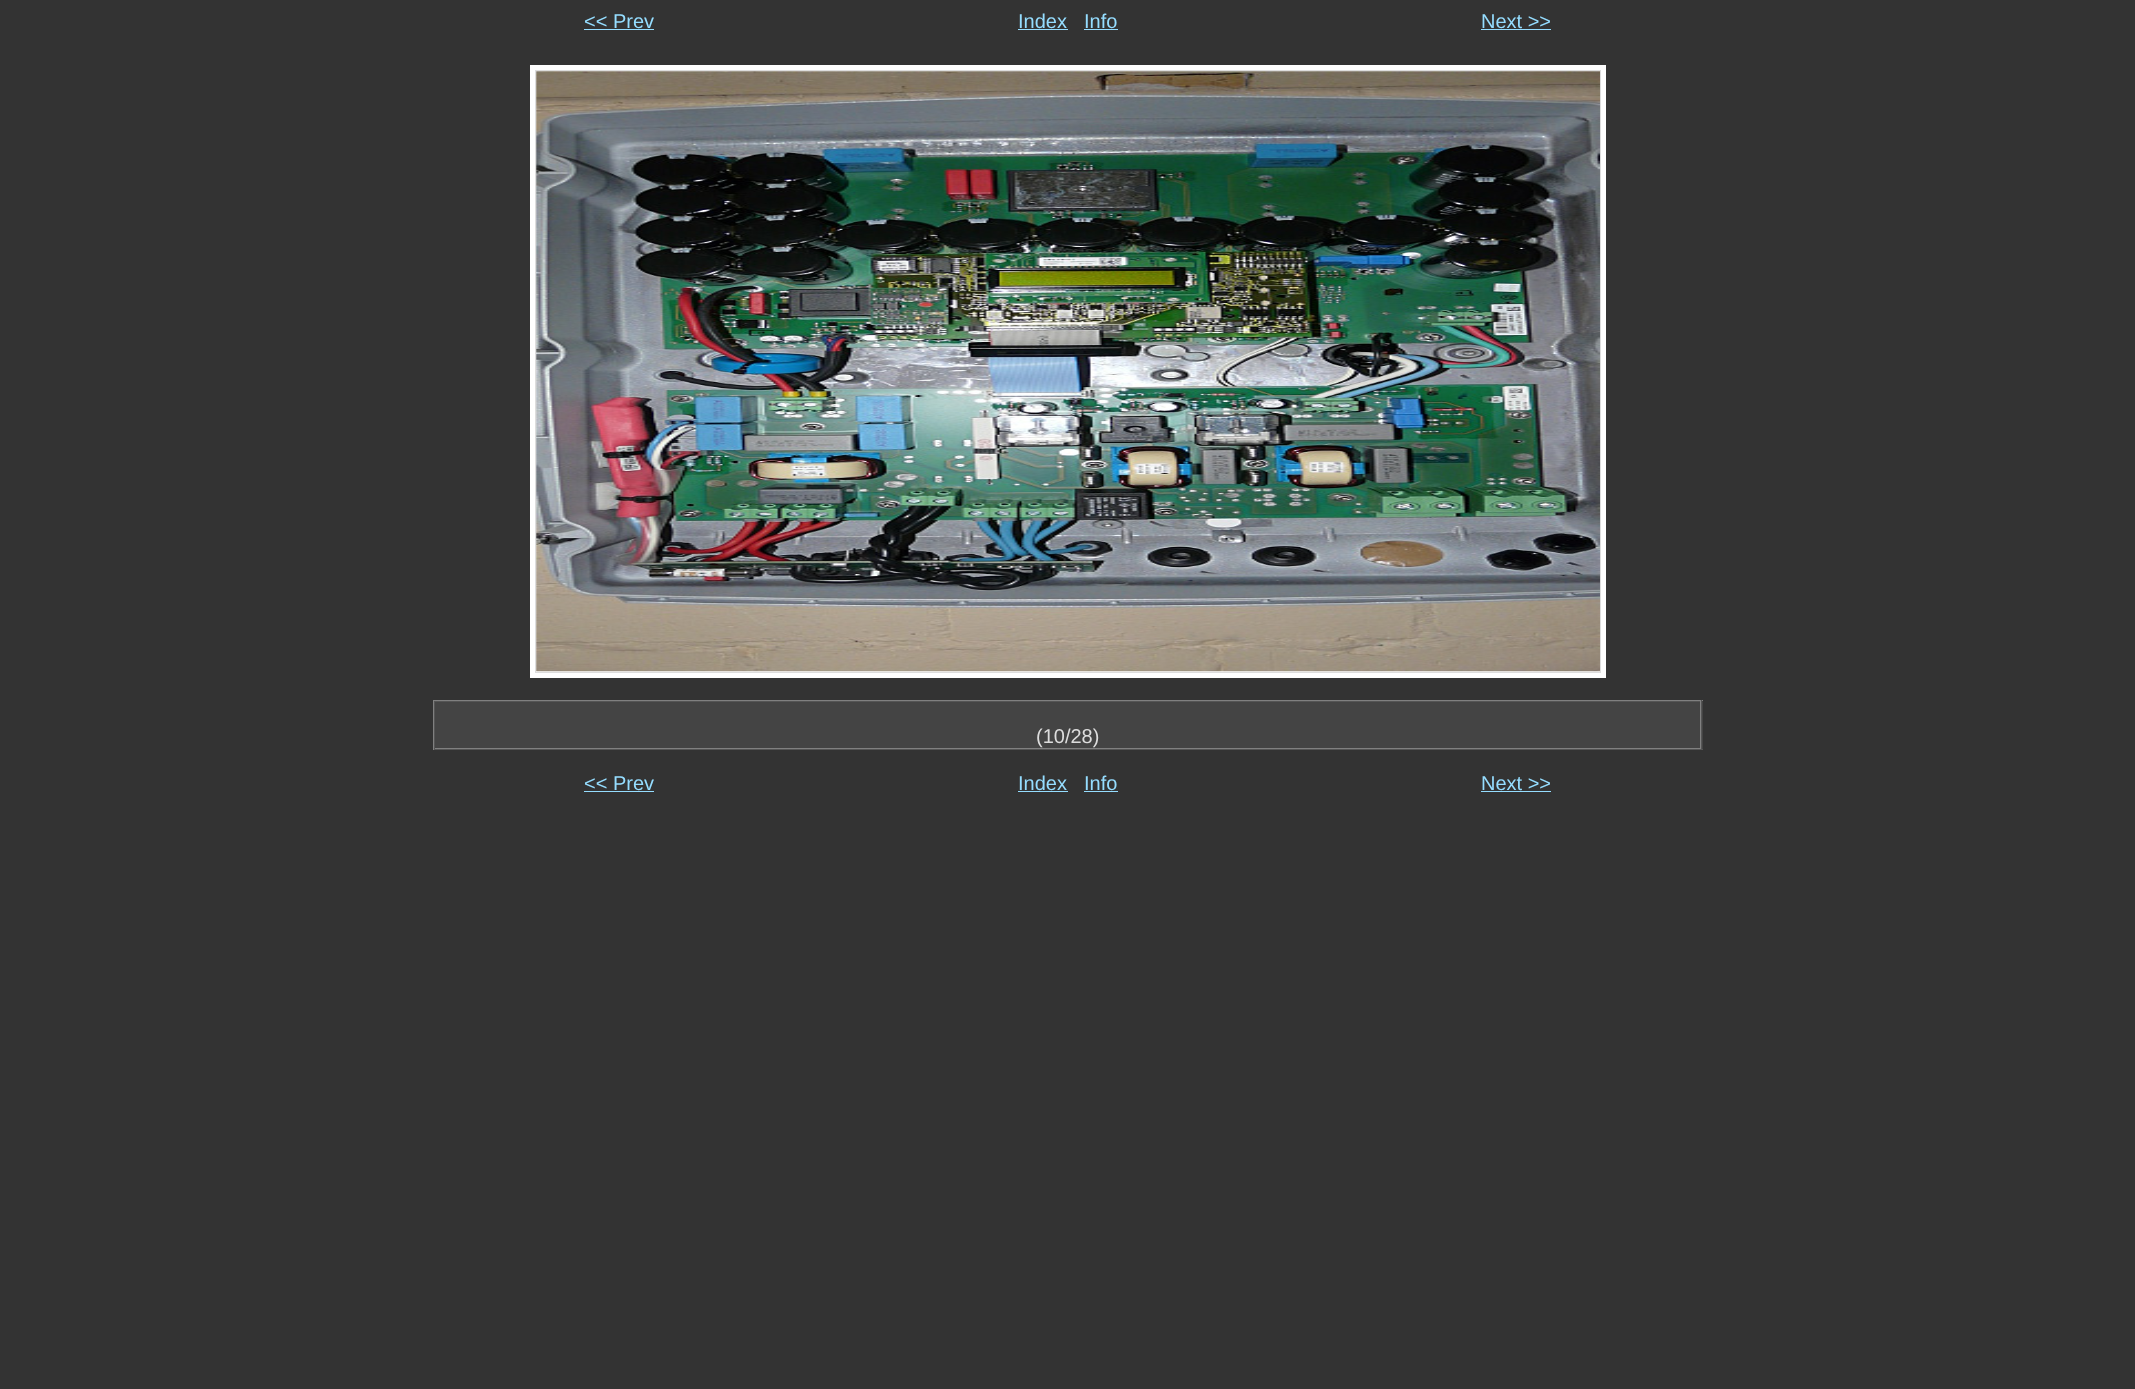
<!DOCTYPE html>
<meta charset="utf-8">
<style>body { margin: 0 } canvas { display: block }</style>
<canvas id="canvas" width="2135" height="1389"></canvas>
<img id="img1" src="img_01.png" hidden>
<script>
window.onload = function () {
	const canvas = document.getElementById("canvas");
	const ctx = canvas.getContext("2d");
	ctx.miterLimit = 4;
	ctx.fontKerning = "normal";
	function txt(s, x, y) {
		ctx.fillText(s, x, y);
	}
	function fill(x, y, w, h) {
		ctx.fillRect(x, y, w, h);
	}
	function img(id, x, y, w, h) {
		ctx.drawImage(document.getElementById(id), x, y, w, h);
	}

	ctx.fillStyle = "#333333";
	fill(0, 0, 2135, 1389);
	ctx.fillStyle = "#95DDFF";
	fill(584, 29, 70, 1);
	fill(1018, 29, 50, 1);
	fill(1084, 29, 34, 1);
	fill(1481, 29, 70, 1);
	ctx.fillStyle = "#FFFFFF";
	fill(530, 65, 1076, 613);
	ctx.strokeStyle = "#DDDDDD";
	ctx.strokeRect(535.5, 70.5, 1065, 602);
	img("img1", 536, 71, 1064, 601);
	ctx.fillStyle = "#444444";
	fill(435, 701, 1268, 48);
	ctx.fillStyle = "#808080";
	fill(433, 700, 1270, 1);
	ctx.fillStyle = "#555555";
	fill(1701, 700, 1, 50);
	fill(433, 749, 1270, 1);
	ctx.fillStyle = "#808080";
	fill(433, 700, 1, 50);
	ctx.fillStyle = "#555555";
	fill(434, 701, 1267, 1);
	ctx.fillStyle = "#808080";
	fill(1700, 701, 1, 48);
	fill(434, 748, 1267, 1);
	ctx.fillStyle = "#555555";
	fill(434, 701, 1, 48);
	ctx.fillStyle = "#95DDFF";
	fill(584, 791, 70, 1);
	fill(1018, 791, 50, 1);
	fill(1084, 791, 34, 1);
	fill(1481, 791, 70, 1);
	ctx.font = "20px Liberation Sans";
	txt("<< Prev", 584, 28);
	txt("Index", 1018, 28);
	txt("Info", 1084, 28);
	txt("Next >>", 1481, 28);
	ctx.fillStyle = "#DDDDDD";
	txt("(10/28)", 1036, 743);
	ctx.fillStyle = "#95DDFF";
	txt("<< Prev", 584, 790);
	txt("Index", 1018, 790);
	txt("Info", 1084, 790);
	txt("Next >>", 1481, 790);
};
</script>
